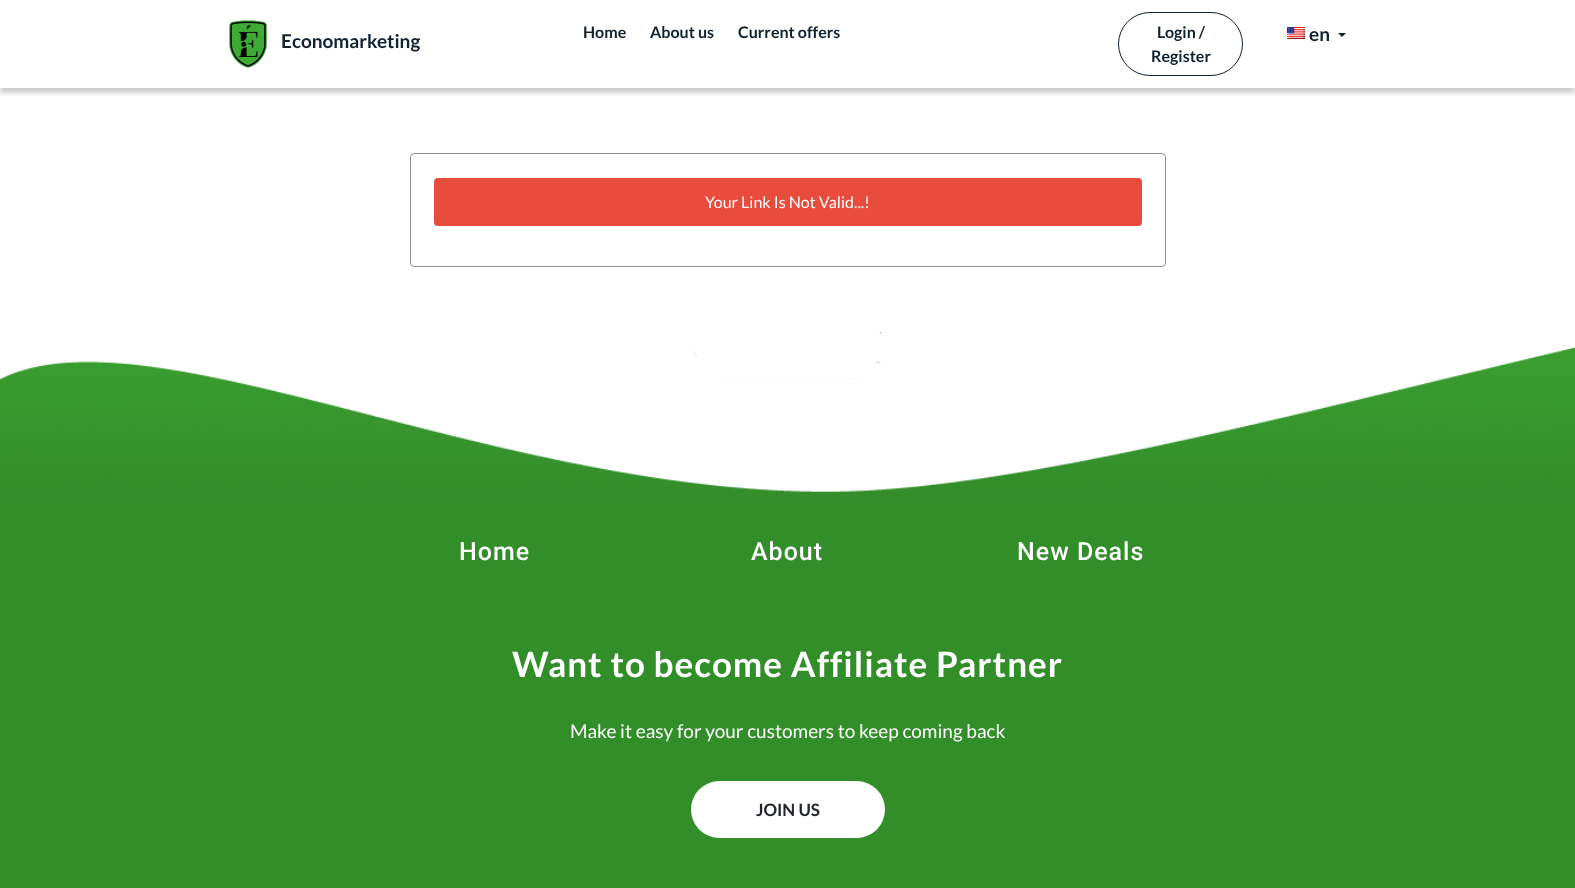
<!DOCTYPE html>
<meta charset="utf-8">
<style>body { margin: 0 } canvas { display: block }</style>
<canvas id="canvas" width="1575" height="888"></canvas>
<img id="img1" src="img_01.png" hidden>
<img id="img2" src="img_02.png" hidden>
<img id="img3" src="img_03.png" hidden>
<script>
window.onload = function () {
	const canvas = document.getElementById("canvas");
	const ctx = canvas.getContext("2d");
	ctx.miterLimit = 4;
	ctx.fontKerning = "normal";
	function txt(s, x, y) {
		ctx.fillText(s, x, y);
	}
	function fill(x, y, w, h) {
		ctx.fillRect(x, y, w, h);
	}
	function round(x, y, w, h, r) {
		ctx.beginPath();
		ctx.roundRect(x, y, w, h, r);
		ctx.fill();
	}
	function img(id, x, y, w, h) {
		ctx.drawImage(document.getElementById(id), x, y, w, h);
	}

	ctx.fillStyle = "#FFFFFF";
	fill(0, 0, 1575, 888);
	ctx.save();
	ctx.beginPath();
	ctx.rect(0, 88, 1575, 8);
	ctx.clip();
	ctx.fillStyle = "rgba(0, 0, 0, 0.2)";
	ctx.filter = "blur(2.5px)";
	ctx.beginPath();
	ctx.rect(0, 5, 1575, 88);
	ctx.fill();
	ctx.filter = "none";
	ctx.restore();
	img("img1", 229, 20, 38, 48);
	ctx.beginPath();
	ctx.roundRect(1118.5, 12.5, 124, 63, 31.5);
	ctx.strokeStyle = "#112233";
	ctx.stroke();
	img("img2", 1287, 27, 18, 12);
	ctx.fillStyle = "#112233";
	ctx.beginPath();
	ctx.moveTo(1338, 33);
	ctx.lineTo(1346, 33);
	ctx.lineTo(1342, 37);
	ctx.closePath();
	ctx.fill();
	ctx.beginPath();
	ctx.roundRect(410.5, 153.5, 755, 113, 3.5);
	ctx.strokeStyle = "#918F8F";
	ctx.stroke();
	ctx.fillStyle = "#E74C3C";
	round(434, 178, 708, 48, 4);
	img("img3", 0, 332, 1575, 171);
	ctx.fillStyle = "#318E28";
	fill(0, 503, 1575, 385);
	ctx.fillStyle = "#FFFFFF";
	round(691, 781, 194, 57, 28.5);
	ctx.font = "bold 19px Lato";
	ctx.fillStyle = "#112233";
	txt("Economarketing", 281, 48);
	ctx.font = "bold 16px Lato";
	txt("Home", 583, 38);
	txt("About us", 650, 38);
	txt("Current offers", 738, 38);
	txt("Login /", 1157, 38);
	txt("Register", 1151, 62);
	ctx.font = "bold 19px Lato";
	txt("en", 1309, 41);
	ctx.font = "16px Lato";
	ctx.fillStyle = "#FFFFFF";
	txt("Your Link Is Not Valid...!", 705, 208);
	ctx.letterSpacing = "1px";
	ctx.font = "500 25px Roboto";
	txt("Home", 459, 560);
	txt("About", 751, 560);
	txt("New Deals", 1017, 560);
	ctx.font = "bold 35px Lato";
	txt("Want to become Affiliate Partner", 512, 677);
	ctx.letterSpacing = "0px";
	ctx.font = "19px Lato";
	txt("Make it easy for your customers to keep coming back", 570, 738);
	ctx.font = "bold 17px Lato";
	ctx.fillStyle = "#212529";
	txt("JOIN US", 756, 816);
};
</script>
